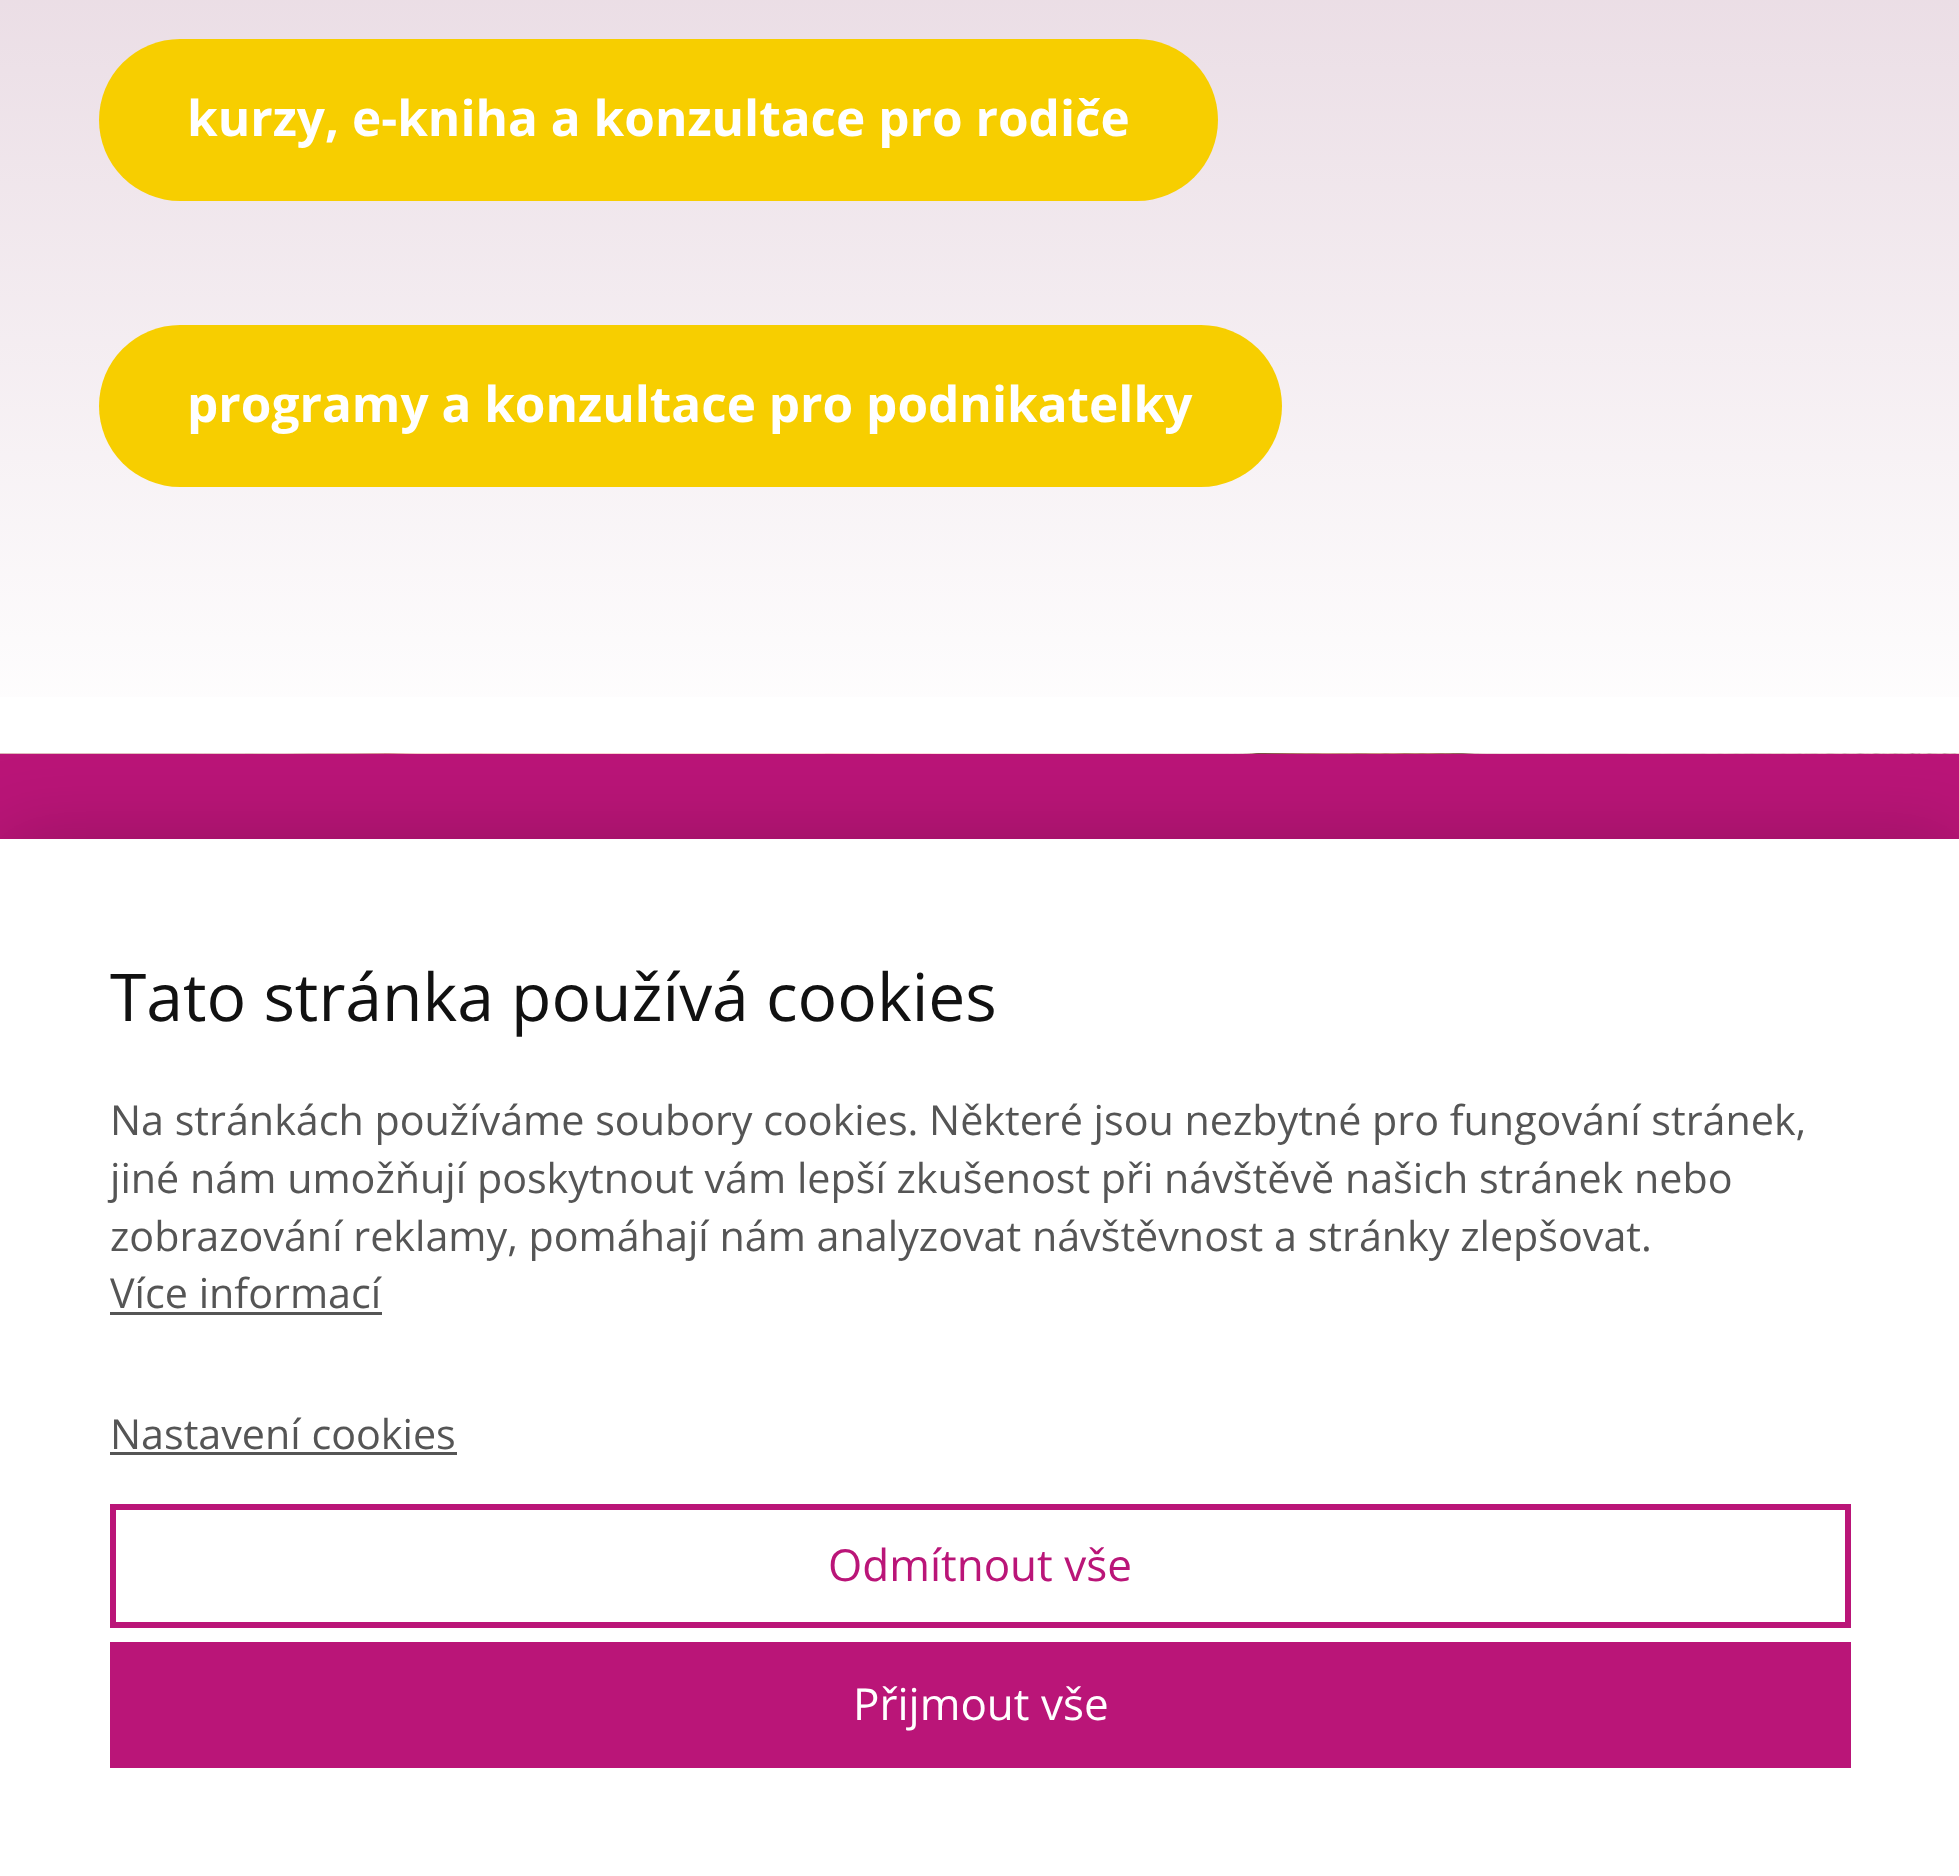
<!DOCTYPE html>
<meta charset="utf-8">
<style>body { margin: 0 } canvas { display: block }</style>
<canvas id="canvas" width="1959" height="1876"></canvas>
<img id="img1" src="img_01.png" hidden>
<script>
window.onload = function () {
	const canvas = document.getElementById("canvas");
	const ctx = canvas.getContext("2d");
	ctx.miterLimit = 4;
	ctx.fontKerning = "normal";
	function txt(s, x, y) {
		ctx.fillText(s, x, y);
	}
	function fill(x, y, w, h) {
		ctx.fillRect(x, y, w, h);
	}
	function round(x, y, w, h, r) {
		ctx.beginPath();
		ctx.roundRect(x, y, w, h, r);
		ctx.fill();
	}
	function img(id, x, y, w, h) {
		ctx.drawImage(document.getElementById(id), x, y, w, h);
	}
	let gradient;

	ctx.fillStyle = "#FFFFFF";
	fill(0, 0, 1959, 1876);
	gradient = ctx.createLinearGradient(980, -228, 980, 754);
	gradient.addColorStop(0, "#E5D4DE");
	gradient.addColorStop(1, "#FFFFFF");
	ctx.fillStyle = gradient;
	fill(0, 0, 1959, 697);
	ctx.fillStyle = "#F7CE00";
	round(99, 39, 1119, 162, 81);
	round(99, 325, 1183, 162, 81);
	img("img1", 0, 753, 1959, 1);
	ctx.fillStyle = "#BA1578";
	fill(0, 754, 1959, 85);
	ctx.fillStyle = "rgba(0, 0, 0, 0.2)";
	ctx.filter = "blur(41px)";
	ctx.beginPath();
	ctx.rect(0, 839, 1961, 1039);
	ctx.fill();
	ctx.filter = "none";
	ctx.fillStyle = "#FFFFFF";
	fill(0, 839, 1959, 1037);
	ctx.fillStyle = "#555555";
	fill(110, 1312, 272, 3);
	fill(110, 1452, 347, 3);
	ctx.strokeStyle = "#BA1578";
	ctx.lineWidth = 6;
	ctx.strokeRect(113, 1507, 1735, 118);
	ctx.fillStyle = "#BA1578";
	fill(110, 1642, 1741, 126);
	ctx.font = "bold 49.5px Open Sans";
	ctx.fillStyle = "#FFFFFF";
	txt("kurzy, e-kniha a konzultace pro rodiče", 187, 136);
	txt("programy a konzultace pro podnikatelky", 187, 422);
	ctx.font = "66px Open Sans";
	ctx.fillStyle = "#111111";
	txt("Tato stránka používá cookies", 110, 1021);
	ctx.font = "41.25px Open Sans";
	ctx.fillStyle = "#555555";
	txt("Na stránkách používáme soubory cookies. Některé jsou nezbytné pro fungování stránek,", 110, 1135);
	txt("jiné nám umožňují poskytnout vám lepší zkušenost při návštěvě našich stránek nebo", 110, 1193);
	txt("zobrazování reklamy, pomáhají nám analyzovat návštěvnost a stránky zlepšovat.", 110, 1251);
	txt("Více informací", 110, 1308);
	txt("Nastavení cookies", 110, 1449);
	ctx.font = "44px Open Sans";
	ctx.fillStyle = "#BA1578";
	txt("Odmítnout vše", 828, 1581);
	ctx.fillStyle = "#FFFFFF";
	txt("Přijmout vše", 853, 1720);
};
</script>
